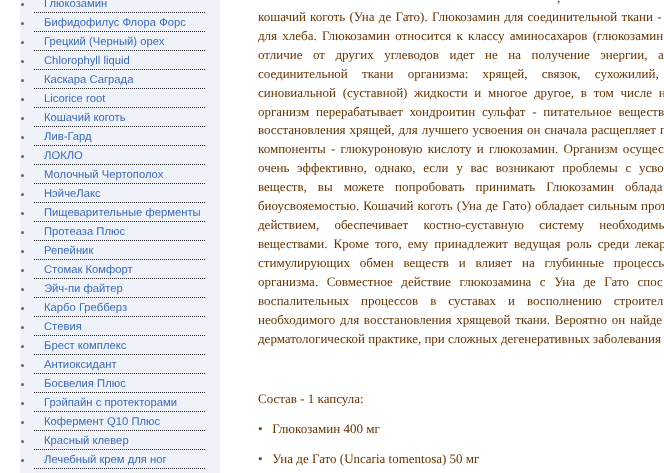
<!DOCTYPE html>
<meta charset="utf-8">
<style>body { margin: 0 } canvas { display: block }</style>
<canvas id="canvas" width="664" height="473"></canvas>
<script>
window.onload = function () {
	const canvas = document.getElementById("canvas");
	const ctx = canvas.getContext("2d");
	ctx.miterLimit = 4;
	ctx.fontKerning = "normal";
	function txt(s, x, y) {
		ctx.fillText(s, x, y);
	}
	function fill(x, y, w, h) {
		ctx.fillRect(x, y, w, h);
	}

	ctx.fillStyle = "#FFFFFF";
	fill(0, 0, 664, 473);
	ctx.fillStyle = "#EFF3F9";
	fill(20, 0, 200, 473);
	ctx.fillStyle = "#666666";
	ctx.beginPath();
	ctx.arc(22.5, 4.5, 1.5, 0, Math.PI * 2);
	ctx.fill();
	ctx.beginPath();
	ctx.moveTo(34, 12.5);
	ctx.lineTo(206, 12.5);
	ctx.strokeStyle = "#1F1F21";
	ctx.setLineDash([1, 1]);
	ctx.stroke();
	ctx.beginPath();
	ctx.arc(22.5, 23.5, 1.5, 0, Math.PI * 2);
	ctx.fill();
	ctx.beginPath();
	ctx.moveTo(34, 31.5);
	ctx.lineTo(206, 31.5);
	ctx.stroke();
	ctx.beginPath();
	ctx.arc(22.5, 42.5, 1.5, 0, Math.PI * 2);
	ctx.fill();
	ctx.beginPath();
	ctx.moveTo(34, 50.5);
	ctx.lineTo(206, 50.5);
	ctx.stroke();
	ctx.beginPath();
	ctx.arc(22.5, 61.5, 1.5, 0, Math.PI * 2);
	ctx.fill();
	ctx.beginPath();
	ctx.moveTo(34, 69.5);
	ctx.lineTo(206, 69.5);
	ctx.stroke();
	ctx.beginPath();
	ctx.arc(22.5, 80.5, 1.5, 0, Math.PI * 2);
	ctx.fill();
	ctx.beginPath();
	ctx.moveTo(34, 88.5);
	ctx.lineTo(206, 88.5);
	ctx.stroke();
	ctx.beginPath();
	ctx.arc(22.5, 99.5, 1.5, 0, Math.PI * 2);
	ctx.fill();
	ctx.beginPath();
	ctx.moveTo(34, 107.5);
	ctx.lineTo(206, 107.5);
	ctx.stroke();
	ctx.beginPath();
	ctx.arc(22.5, 118.5, 1.5, 0, Math.PI * 2);
	ctx.fill();
	ctx.beginPath();
	ctx.moveTo(34, 126.5);
	ctx.lineTo(206, 126.5);
	ctx.stroke();
	ctx.beginPath();
	ctx.arc(22.5, 137.5, 1.5, 0, Math.PI * 2);
	ctx.fill();
	ctx.beginPath();
	ctx.moveTo(34, 145.5);
	ctx.lineTo(206, 145.5);
	ctx.stroke();
	ctx.beginPath();
	ctx.arc(22.5, 156.5, 1.5, 0, Math.PI * 2);
	ctx.fill();
	ctx.beginPath();
	ctx.moveTo(34, 164.5);
	ctx.lineTo(206, 164.5);
	ctx.stroke();
	ctx.beginPath();
	ctx.arc(22.5, 175.5, 1.5, 0, Math.PI * 2);
	ctx.fill();
	ctx.beginPath();
	ctx.moveTo(34, 183.5);
	ctx.lineTo(206, 183.5);
	ctx.stroke();
	ctx.beginPath();
	ctx.arc(22.5, 194.5, 1.5, 0, Math.PI * 2);
	ctx.fill();
	ctx.beginPath();
	ctx.moveTo(34, 202.5);
	ctx.lineTo(206, 202.5);
	ctx.stroke();
	ctx.beginPath();
	ctx.arc(22.5, 213.5, 1.5, 0, Math.PI * 2);
	ctx.fill();
	ctx.beginPath();
	ctx.moveTo(34, 221.5);
	ctx.lineTo(206, 221.5);
	ctx.stroke();
	ctx.beginPath();
	ctx.arc(22.5, 232.5, 1.5, 0, Math.PI * 2);
	ctx.fill();
	ctx.beginPath();
	ctx.moveTo(34, 240.5);
	ctx.lineTo(206, 240.5);
	ctx.stroke();
	ctx.beginPath();
	ctx.arc(22.5, 251.5, 1.5, 0, Math.PI * 2);
	ctx.fill();
	ctx.beginPath();
	ctx.moveTo(34, 259.5);
	ctx.lineTo(206, 259.5);
	ctx.stroke();
	ctx.beginPath();
	ctx.arc(22.5, 270.5, 1.5, 0, Math.PI * 2);
	ctx.fill();
	ctx.beginPath();
	ctx.moveTo(34, 278.5);
	ctx.lineTo(206, 278.5);
	ctx.stroke();
	ctx.beginPath();
	ctx.arc(22.5, 289.5, 1.5, 0, Math.PI * 2);
	ctx.fill();
	ctx.beginPath();
	ctx.moveTo(34, 297.5);
	ctx.lineTo(206, 297.5);
	ctx.stroke();
	ctx.beginPath();
	ctx.arc(22.5, 308.5, 1.5, 0, Math.PI * 2);
	ctx.fill();
	ctx.beginPath();
	ctx.moveTo(34, 316.5);
	ctx.lineTo(206, 316.5);
	ctx.stroke();
	ctx.beginPath();
	ctx.arc(22.5, 327.5, 1.5, 0, Math.PI * 2);
	ctx.fill();
	ctx.beginPath();
	ctx.moveTo(34, 335.5);
	ctx.lineTo(206, 335.5);
	ctx.stroke();
	ctx.beginPath();
	ctx.arc(22.5, 346.5, 1.5, 0, Math.PI * 2);
	ctx.fill();
	ctx.beginPath();
	ctx.moveTo(34, 354.5);
	ctx.lineTo(206, 354.5);
	ctx.stroke();
	ctx.beginPath();
	ctx.arc(22.5, 365.5, 1.5, 0, Math.PI * 2);
	ctx.fill();
	ctx.beginPath();
	ctx.moveTo(34, 373.5);
	ctx.lineTo(206, 373.5);
	ctx.stroke();
	ctx.beginPath();
	ctx.arc(22.5, 384.5, 1.5, 0, Math.PI * 2);
	ctx.fill();
	ctx.beginPath();
	ctx.moveTo(34, 392.5);
	ctx.lineTo(206, 392.5);
	ctx.stroke();
	ctx.beginPath();
	ctx.arc(22.5, 403.5, 1.5, 0, Math.PI * 2);
	ctx.fill();
	ctx.beginPath();
	ctx.moveTo(34, 411.5);
	ctx.lineTo(206, 411.5);
	ctx.stroke();
	ctx.beginPath();
	ctx.arc(22.5, 422.5, 1.5, 0, Math.PI * 2);
	ctx.fill();
	ctx.beginPath();
	ctx.moveTo(34, 430.5);
	ctx.lineTo(206, 430.5);
	ctx.stroke();
	ctx.beginPath();
	ctx.arc(22.5, 441.5, 1.5, 0, Math.PI * 2);
	ctx.fill();
	ctx.beginPath();
	ctx.moveTo(34, 449.5);
	ctx.lineTo(206, 449.5);
	ctx.stroke();
	ctx.beginPath();
	ctx.arc(22.5, 460.5, 1.5, 0, Math.PI * 2);
	ctx.fill();
	ctx.beginPath();
	ctx.moveTo(34, 468.5);
	ctx.lineTo(206, 468.5);
	ctx.stroke();
	ctx.font = "11.25px Liberation Sans";
	ctx.fillStyle = "#3A69BA";
	txt("Глюкозамин", 44, 7);
	txt("Бифидофилус Флора Форс", 44, 26);
	txt("Грецкий (Черный) орех", 44, 45);
	txt("Chlorophyll liquid", 44, 64);
	txt("Каскара Саграда", 44, 83);
	txt("Licorice root", 44, 102);
	txt("Кошачий коготь", 44, 121);
	txt("Лив-Гард", 44, 140);
	txt("ЛОКЛО", 44, 159);
	txt("Молочный Чертополох", 44, 178);
	txt("НэйчеЛакс", 44, 197);
	txt("Пищеварительные ферменты", 44, 216);
	txt("Протеаза Плюс", 44, 235);
	txt("Репейник", 44, 254);
	txt("Стомак Комфорт", 44, 273);
	txt("Эйч-пи файтер", 44, 292);
	txt("Карбо Гребберз", 44, 311);
	txt("Стевия", 44, 330);
	txt("Брест комплекс", 44, 349);
	txt("Антиоксидант", 44, 368);
	txt("Босвелия Плюс", 44, 387);
	txt("Грэйпайн с протекторами", 44, 406);
	txt("Кофермент Q10 Плюс", 44, 425);
	txt("Красный клевер", 44, 444);
	txt("Лечебный крем для ног", 44, 463);
	ctx.font = "13px Liberation Serif";
	ctx.fillStyle = "#663300";
	txt(",", 557, 2);
	ctx.wordSpacing = "1px";
	txt("кошачий коготь (Уна де Гато). Глюкозамин для соединительной ткани -", 258, 21);
	ctx.wordSpacing = "2px";
	txt("для хлеба. Глюкозамин относится к классу аминосахаров (глюкозамин", 258, 40);
	ctx.wordSpacing = "7.25px";
	txt("отличие от других углеводов идет не на получение энергии, а", 258, 59);
	ctx.wordSpacing = "11px";
	txt("соединительной ткани организма: хрящей, связок, сухожилий,", 258, 78);
	ctx.wordSpacing = "3.5px";
	txt("синовиальной (суставной) жидкости и многое другое, в том числе н", 258, 97);
	txt("организм перерабатывает хондроитин сульфат - питательное веществ", 258, 116);
	ctx.wordSpacing = "0.75px";
	txt("восстановления хрящей, для лучшего усвоения он сначала расщепляет п", 258, 134);
	ctx.wordSpacing = "2px";
	txt("компоненты - глюкуроновую кислоту и глюкозамин. Организм осущес", 258, 153);
	ctx.wordSpacing = "4.5px";
	txt("очень эффективно, однако, если у вас возникают проблемы с усво", 258, 172);
	ctx.wordSpacing = "7.75px";
	txt("веществ, вы можете попробовать принимать Глюкозамин облада", 258, 191);
	ctx.wordSpacing = "0.75px";
	txt("биоусвояемостью. Кошачий коготь (Уна де Гато) обладает сильным прот", 258, 210);
	ctx.wordSpacing = "12px";
	txt("действием, обеспечивает костно-суставную систему необходимы", 258, 229);
	ctx.wordSpacing = "2.75px";
	txt("веществами. Кроме того, ему принадлежит ведущая роль среди лекар", 258, 248);
	ctx.wordSpacing = "6.5px";
	txt("стимулирующих обмен веществ и влияет на глубинные процессы", 258, 267);
	ctx.wordSpacing = "5.25px";
	txt("организма. Совместное действие глюкозамина с Уна де Гато спос", 258, 286);
	ctx.wordSpacing = "8.75px";
	txt("воспалительных процессов в суставах и восполнению строител", 258, 305);
	ctx.wordSpacing = "1.5px";
	txt("необходимого для восстановления хрящевой ткани. Вероятно он найде", 258, 324);
	ctx.wordSpacing = "0px";
	txt("дерматологической практике, при сложных дегенеративных заболевания", 258, 343);
	txt("Состав - 1 капсула:", 258, 403);
	txt("•   Глюкозамин 400 мг", 258, 433);
	txt("•   Уна де Гато (Uncaria tomentosa) 50 мг", 258, 463);
};
</script>
